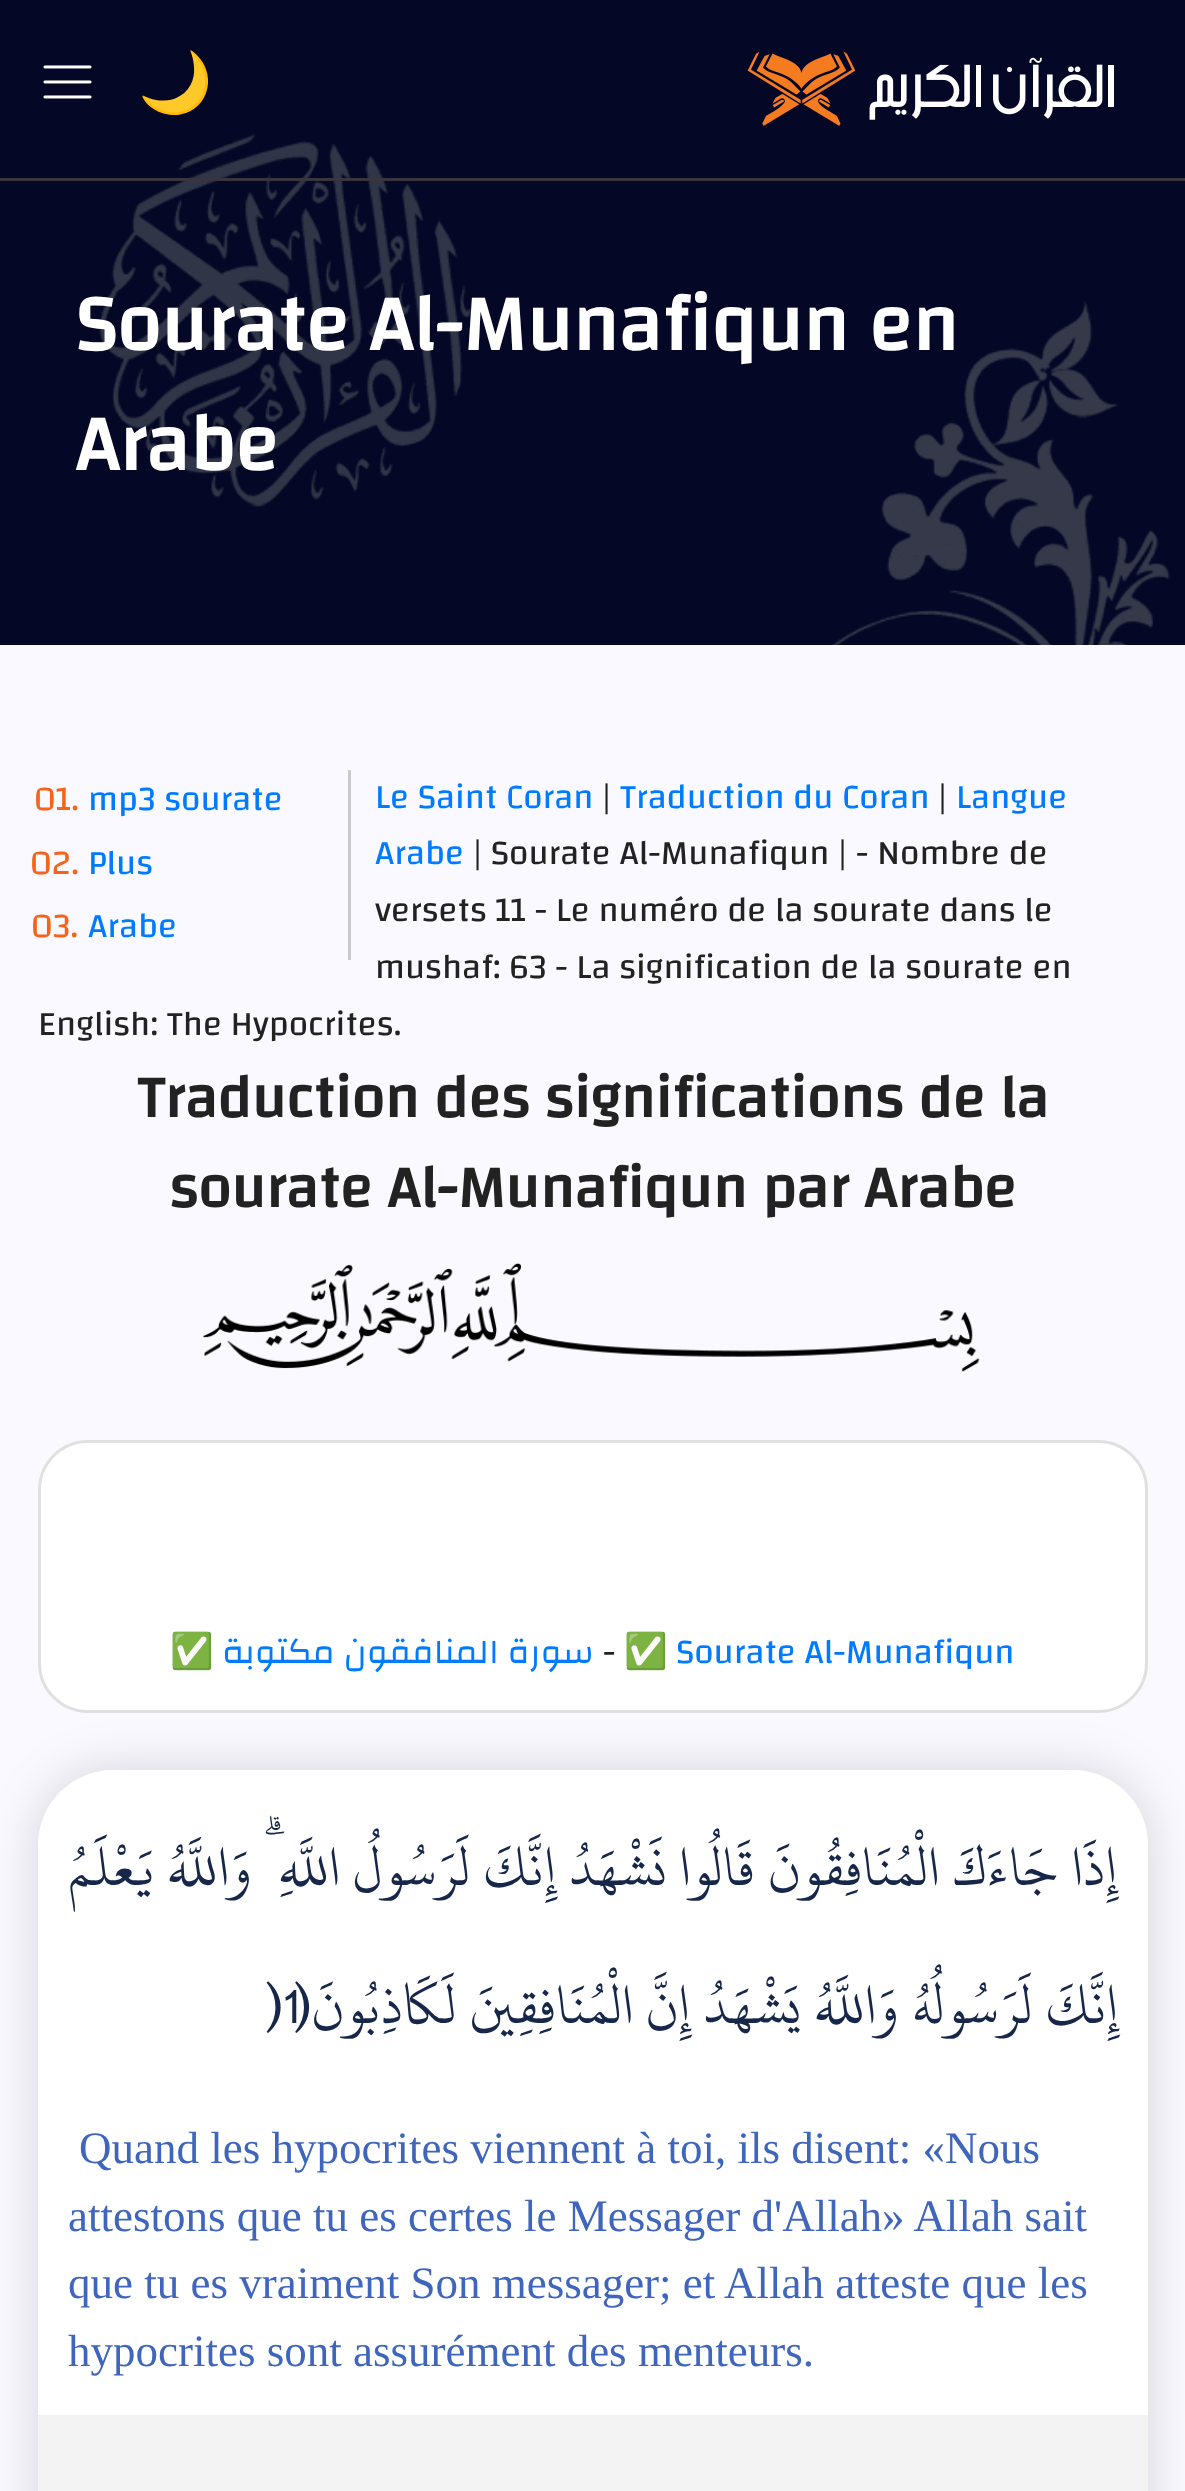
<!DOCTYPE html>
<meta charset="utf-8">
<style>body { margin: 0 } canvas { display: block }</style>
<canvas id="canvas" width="1185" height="2491"></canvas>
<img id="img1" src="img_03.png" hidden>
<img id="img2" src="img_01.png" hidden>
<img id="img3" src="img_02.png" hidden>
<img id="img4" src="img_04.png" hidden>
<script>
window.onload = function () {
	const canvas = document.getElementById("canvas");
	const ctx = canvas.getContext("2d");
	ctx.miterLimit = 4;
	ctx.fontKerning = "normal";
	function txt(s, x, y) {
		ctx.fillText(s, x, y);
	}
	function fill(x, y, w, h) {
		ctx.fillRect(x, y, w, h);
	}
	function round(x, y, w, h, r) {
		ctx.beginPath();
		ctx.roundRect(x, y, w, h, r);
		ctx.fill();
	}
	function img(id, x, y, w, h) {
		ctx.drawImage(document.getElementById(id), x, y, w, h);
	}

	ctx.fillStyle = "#F9F9FF";
	fill(0, 0, 1185, 2491);
	ctx.fillStyle = "#040726";
	fill(0, 0, 1185, 645);
	img("img1", 99, 133, 1072, 512);
	ctx.fillStyle = "#39353E";
	fill(0, 178, 1185, 3);
	img("img2", 747, 51, 367, 75);
	img("img3", 43, 65, 49, 34);
	ctx.fillStyle = "#CACACA";
	fill(348, 770, 3, 190);
	img("img4", 203, 1263, 777, 109);
	ctx.fillStyle = "rgba(0, 0, 0, 0.15)";
	ctx.filter = "blur(25px)";
	ctx.beginPath();
	ctx.roundRect(38, 1770, 1110, 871, 75);
	ctx.fill();
	ctx.filter = "none";
	ctx.fillStyle = "#FFFFFF";
	round(38, 1440, 1110, 273, 50);
	ctx.beginPath();
	ctx.roundRect(39.5, 1441.5, 1107, 270, 48.5);
	ctx.strokeStyle = "rgba(0, 0, 0, 0.12)";
	ctx.lineWidth = 3;
	ctx.stroke();
	round(38, 1770, 1110, 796, 75);
	ctx.fillStyle = "#F3F3F3";
	fill(38, 2415, 1110, 76);
	ctx.font = "60px Noto Color Emoji";
	ctx.fillStyle = "#333333";
	txt("🌙", 138, 103);
	ctx.font = "bold 80px Changa";
	ctx.fillStyle = "#FFFFFF";
	txt("Sourate Al-Munafiqun en", 75, 350);
	txt("Arabe", 75, 470);
	ctx.font = "35px Changa";
	ctx.fillStyle = "#F7631B";
	txt("01.", 34, 810);
	ctx.fillStyle = "#007BFF";
	txt("mp3 sourate", 88, 810);
	ctx.fillStyle = "#F7631B";
	txt("02.", 30, 874);
	ctx.fillStyle = "#007BFF";
	txt("Plus", 88, 874);
	ctx.fillStyle = "#F7631B";
	txt("03.", 31, 937);
	ctx.fillStyle = "#007BFF";
	txt("Arabe", 88, 937);
	txt("Le Saint Coran", 375, 808);
	ctx.fillStyle = "#222222";
	txt("|", 602, 808);
	ctx.fillStyle = "#007BFF";
	txt("Traduction du Coran", 620, 808);
	ctx.fillStyle = "#222222";
	txt("|", 938, 808);
	ctx.fillStyle = "#007BFF";
	txt("Langue", 956, 808);
	txt("Arabe", 375, 864);
	ctx.fillStyle = "#222222";
	txt("| Sourate Al-Munafiqun | - Nombre de", 473, 864);
	txt("versets 11 - Le numéro de la sourate dans le", 375, 921);
	txt("mushaf: 63 - La signification de la sourate en", 375, 978);
	txt("English: The Hypocrites.", 38, 1035);
	ctx.font = "bold 60px Changa";
	txt("Traduction des significations de la", 137, 1117);
	txt("sourate Al-Munafiqun par Arabe", 169, 1207);
	ctx.font = "35px Noto Color Emoji";
	txt("✅", 170, 1663);
	ctx.direction = "rtl";
	ctx.font = "35px Changa";
	ctx.fillStyle = "#007BFF";
	txt("سورة المنافقون مكتوبة", 594, 1663);
	ctx.direction = "ltr";
	ctx.fillStyle = "#222222";
	txt("-", 603, 1663);
	ctx.font = "35px Noto Color Emoji";
	txt("✅", 624, 1663);
	ctx.font = "35px Changa";
	ctx.fillStyle = "#007BFF";
	txt("Sourate Al-Munafiqun", 676, 1663);
	ctx.direction = "rtl";
	ctx.font = "60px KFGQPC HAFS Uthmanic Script";
	ctx.fillStyle = "#17274A";
	txt("إِذَا جَاءَكَ الْمُنَافِقُونَ قَالُوا نَشْهَدُ إِنَّكَ لَرَسُولُ اللَّهِ ۗ وَاللَّهُ يَعْلَمُ", 1117, 1885);
	ctx.direction = "ltr";
	txt(")1", 263, 2023);
	ctx.direction = "rtl";
	txt("إِنَّكَ لَرَسُولُهُ وَاللَّهُ يَشْهَدُ إِنَّ الْمُنَافِقِينَ لَكَاذِبُونَ(", 1118, 2023);
	ctx.direction = "ltr";
	ctx.font = "45px Liberation Serif";
	ctx.fillStyle = "#3F66BC";
	txt("Quand les hypocrites viennent à toi, ils disent: «Nous", 79, 2163);
	txt("attestons que tu es certes le Messager d'Allah» Allah sait", 68, 2231);
	txt("que tu es vraiment Son messager; et Allah atteste que les", 68, 2298);
	txt("hypocrites sont assurément des menteurs.", 68, 2366);
};
</script>
